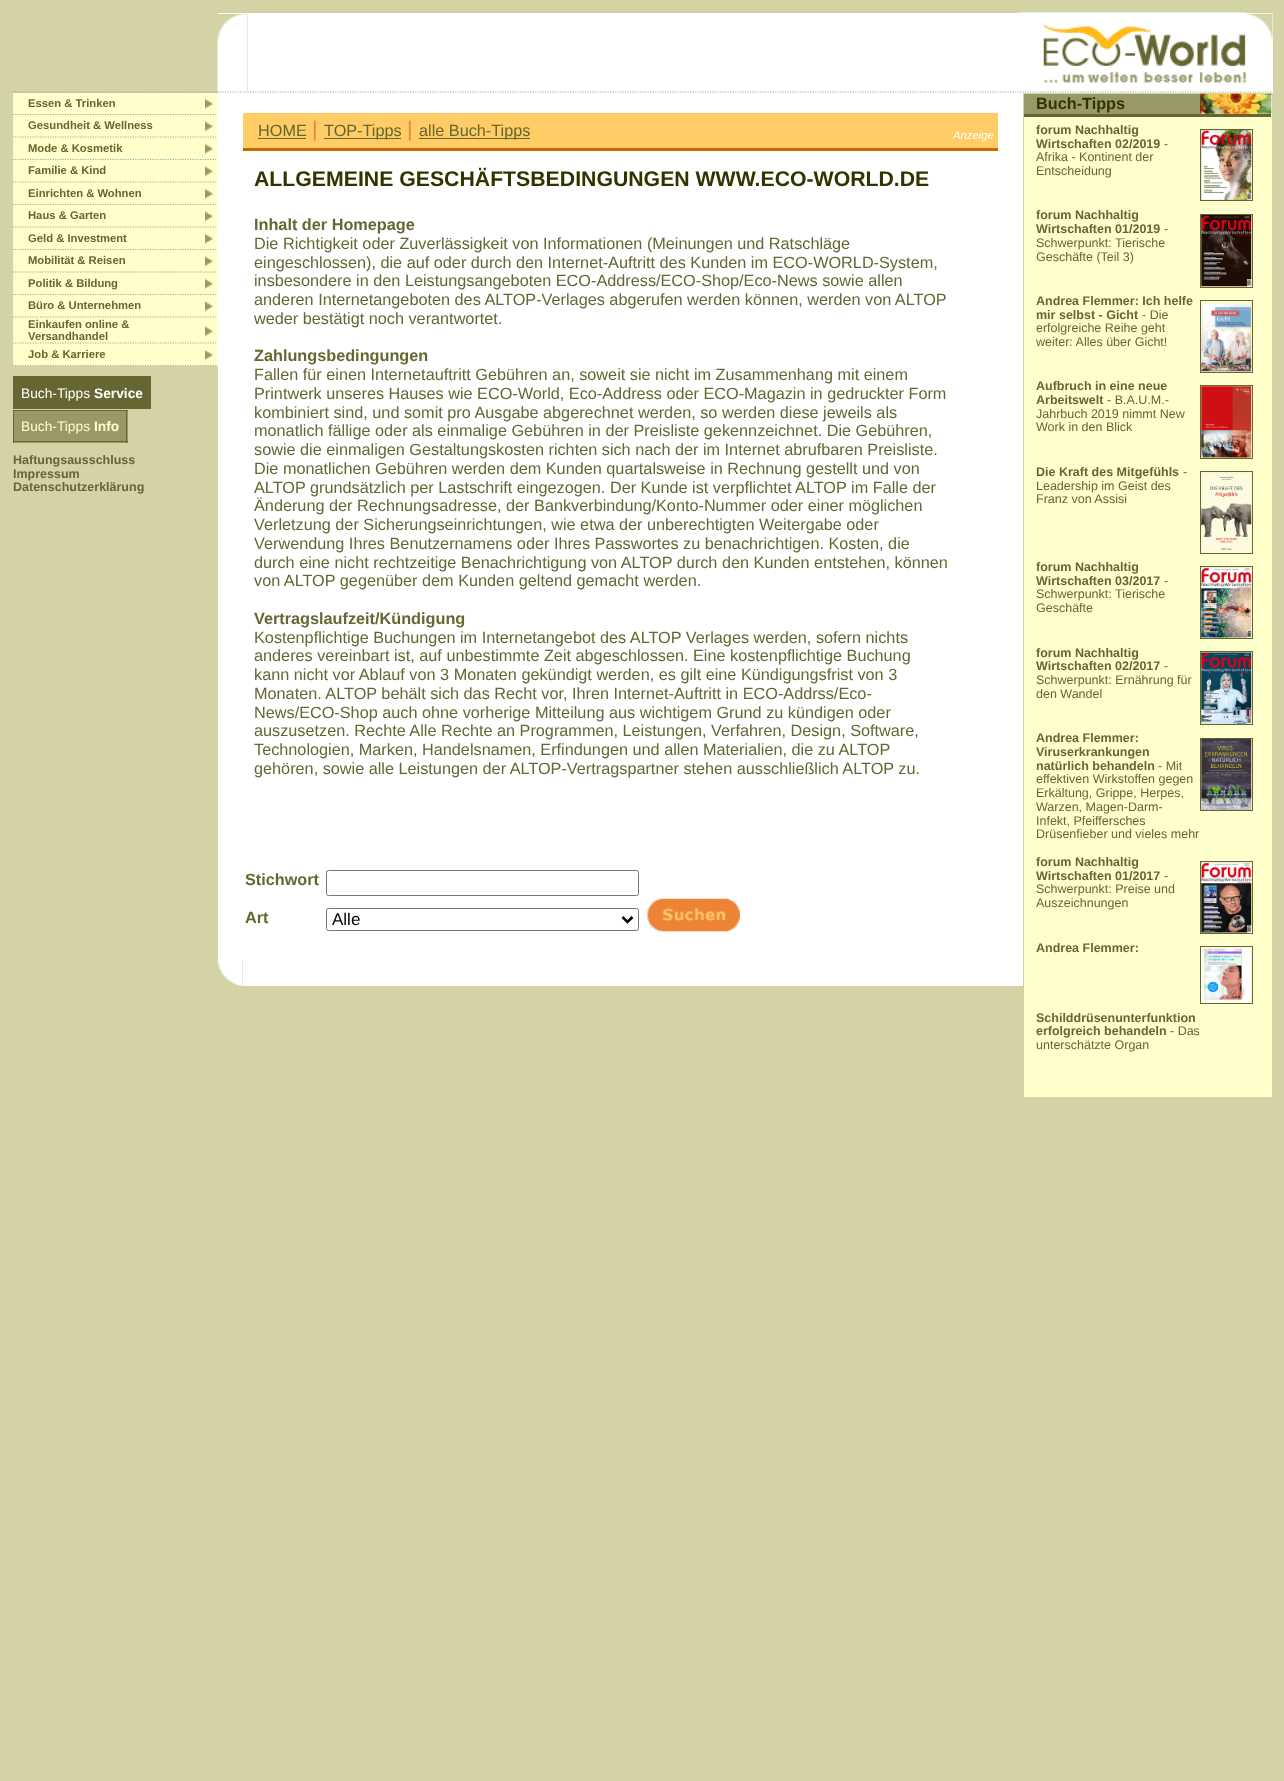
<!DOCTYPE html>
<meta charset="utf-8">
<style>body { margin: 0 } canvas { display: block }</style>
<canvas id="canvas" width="1284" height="1781"></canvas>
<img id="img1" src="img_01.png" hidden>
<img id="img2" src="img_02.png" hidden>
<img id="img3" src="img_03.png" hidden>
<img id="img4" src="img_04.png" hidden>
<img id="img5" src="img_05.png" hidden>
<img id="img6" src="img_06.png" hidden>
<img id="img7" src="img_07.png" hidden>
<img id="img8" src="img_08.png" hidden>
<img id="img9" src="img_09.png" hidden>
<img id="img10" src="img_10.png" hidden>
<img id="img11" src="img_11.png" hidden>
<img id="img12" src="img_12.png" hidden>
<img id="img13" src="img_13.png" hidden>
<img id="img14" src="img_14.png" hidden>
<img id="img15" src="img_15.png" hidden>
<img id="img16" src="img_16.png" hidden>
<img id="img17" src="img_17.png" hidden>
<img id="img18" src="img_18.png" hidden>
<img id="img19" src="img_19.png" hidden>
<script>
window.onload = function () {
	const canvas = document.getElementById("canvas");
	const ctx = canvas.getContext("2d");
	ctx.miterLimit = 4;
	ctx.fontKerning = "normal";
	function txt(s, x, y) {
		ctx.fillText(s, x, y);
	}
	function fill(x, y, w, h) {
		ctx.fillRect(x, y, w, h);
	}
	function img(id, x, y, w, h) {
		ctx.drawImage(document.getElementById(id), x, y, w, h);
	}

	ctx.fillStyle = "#D3D3A6";
	fill(0, 0, 1284, 1781);
	ctx.beginPath();
	ctx.moveTo(12.5, 92);
	ctx.lineTo(217.5, 92);
	ctx.strokeStyle = "#A6A6A6";
	ctx.lineWidth = 1.2;
	ctx.setLineDash([1.25, 1.25]);
	ctx.stroke();
	ctx.fillStyle = "#FFFFFF";
	fill(218, 13, 1055, 80);
	ctx.beginPath();
	ctx.moveTo(217.5, 92);
	ctx.lineTo(1272.5, 92);
	ctx.stroke();
	ctx.fillStyle = "#D3D3A6";
	fill(218, 14, 30, 77);
	img("img1", 217, 13, 31, 79);
	img("img2", 1017, 12, 230, 80);
	img("img3", 1246, 13, 27, 79);
	ctx.fillStyle = "#FFFFCC";
	fill(13, 93, 205, 22);
	ctx.beginPath();
	ctx.moveTo(12.5, 114.5);
	ctx.lineTo(27.5, 114.5);
	ctx.stroke();
	ctx.beginPath();
	ctx.moveTo(27.5, 114.5);
	ctx.lineTo(205, 114.5);
	ctx.stroke();
	ctx.beginPath();
	ctx.moveTo(205, 114.5);
	ctx.lineTo(217.5, 114.5);
	ctx.stroke();
	img("img4", 205, 98, 9, 11);
	fill(13, 115, 205, 23);
	ctx.beginPath();
	ctx.moveTo(12.5, 137);
	ctx.lineTo(27.5, 137);
	ctx.stroke();
	ctx.beginPath();
	ctx.moveTo(27.5, 137);
	ctx.lineTo(205, 137);
	ctx.stroke();
	ctx.beginPath();
	ctx.moveTo(205, 137);
	ctx.lineTo(217.5, 137);
	ctx.stroke();
	img("img5", 205, 121, 9, 11);
	fill(13, 138, 205, 22);
	ctx.beginPath();
	ctx.moveTo(12.5, 159.5);
	ctx.lineTo(27.5, 159.5);
	ctx.stroke();
	ctx.beginPath();
	ctx.moveTo(27.5, 159.5);
	ctx.lineTo(205, 159.5);
	ctx.stroke();
	ctx.beginPath();
	ctx.moveTo(205, 159.5);
	ctx.lineTo(217.5, 159.5);
	ctx.stroke();
	img("img4", 205, 143, 9, 11);
	fill(13, 160, 205, 23);
	ctx.beginPath();
	ctx.moveTo(12.5, 182);
	ctx.lineTo(27.5, 182);
	ctx.stroke();
	ctx.beginPath();
	ctx.moveTo(27.5, 182);
	ctx.lineTo(205, 182);
	ctx.stroke();
	ctx.beginPath();
	ctx.moveTo(205, 182);
	ctx.lineTo(217.5, 182);
	ctx.stroke();
	img("img5", 205, 166, 9, 11);
	fill(13, 183, 205, 22);
	ctx.beginPath();
	ctx.moveTo(12.5, 204.5);
	ctx.lineTo(27.5, 204.5);
	ctx.stroke();
	ctx.beginPath();
	ctx.moveTo(27.5, 204.5);
	ctx.lineTo(205, 204.5);
	ctx.stroke();
	ctx.beginPath();
	ctx.moveTo(205, 204.5);
	ctx.lineTo(217.5, 204.5);
	ctx.stroke();
	img("img4", 205, 188, 9, 11);
	fill(13, 205, 205, 23);
	ctx.beginPath();
	ctx.moveTo(12.5, 227);
	ctx.lineTo(27.5, 227);
	ctx.stroke();
	ctx.beginPath();
	ctx.moveTo(27.5, 227);
	ctx.lineTo(205, 227);
	ctx.stroke();
	ctx.beginPath();
	ctx.moveTo(205, 227);
	ctx.lineTo(217.5, 227);
	ctx.stroke();
	img("img5", 205, 211, 9, 11);
	fill(13, 228, 205, 22);
	ctx.beginPath();
	ctx.moveTo(12.5, 249.5);
	ctx.lineTo(27.5, 249.5);
	ctx.stroke();
	ctx.beginPath();
	ctx.moveTo(27.5, 249.5);
	ctx.lineTo(205, 249.5);
	ctx.stroke();
	ctx.beginPath();
	ctx.moveTo(205, 249.5);
	ctx.lineTo(217.5, 249.5);
	ctx.stroke();
	img("img4", 205, 233, 9, 11);
	fill(13, 250, 205, 23);
	ctx.beginPath();
	ctx.moveTo(12.5, 272);
	ctx.lineTo(27.5, 272);
	ctx.stroke();
	ctx.beginPath();
	ctx.moveTo(27.5, 272);
	ctx.lineTo(205, 272);
	ctx.stroke();
	ctx.beginPath();
	ctx.moveTo(205, 272);
	ctx.lineTo(217.5, 272);
	ctx.stroke();
	img("img5", 205, 256, 9, 11);
	fill(13, 273, 205, 22);
	ctx.beginPath();
	ctx.moveTo(12.5, 294.5);
	ctx.lineTo(27.5, 294.5);
	ctx.stroke();
	ctx.beginPath();
	ctx.moveTo(27.5, 294.5);
	ctx.lineTo(205, 294.5);
	ctx.stroke();
	ctx.beginPath();
	ctx.moveTo(205, 294.5);
	ctx.lineTo(217.5, 294.5);
	ctx.stroke();
	img("img4", 205, 278, 9, 11);
	fill(13, 295, 205, 23);
	ctx.beginPath();
	ctx.moveTo(12.5, 317);
	ctx.lineTo(27.5, 317);
	ctx.stroke();
	ctx.beginPath();
	ctx.moveTo(27.5, 317);
	ctx.lineTo(205, 317);
	ctx.stroke();
	ctx.beginPath();
	ctx.moveTo(205, 317);
	ctx.lineTo(217.5, 317);
	ctx.stroke();
	img("img5", 205, 301, 9, 11);
	fill(13, 318, 205, 26);
	ctx.beginPath();
	ctx.moveTo(12.5, 343);
	ctx.lineTo(27.5, 343);
	ctx.stroke();
	ctx.beginPath();
	ctx.moveTo(27.5, 343);
	ctx.lineTo(205, 343);
	ctx.stroke();
	ctx.beginPath();
	ctx.moveTo(205, 343);
	ctx.lineTo(217.5, 343);
	ctx.stroke();
	img("img5", 205, 326, 9, 11);
	fill(13, 344, 205, 22);
	ctx.beginPath();
	ctx.moveTo(12.5, 365.5);
	ctx.lineTo(27.5, 365.5);
	ctx.stroke();
	ctx.beginPath();
	ctx.moveTo(27.5, 365.5);
	ctx.lineTo(205, 365.5);
	ctx.stroke();
	ctx.beginPath();
	ctx.moveTo(205, 365.5);
	ctx.lineTo(217.5, 365.5);
	ctx.stroke();
	img("img6", 205, 350, 9, 11);
	ctx.fillStyle = "#666633";
	fill(13, 376, 138, 33);
	ctx.fillStyle = "#999966";
	fill(14, 411, 114, 32);
	ctx.fillStyle = "#666633";
	fill(13, 441, 81, 1);
	fill(13, 410, 115, 1);
	fill(13, 410, 1, 33);
	fill(126, 410, 1, 33);
	fill(94, 441, 34, 1);
	ctx.fillStyle = "#FFFFFF";
	fill(218, 93, 805, 867);
	ctx.fillStyle = "#FFCC66";
	fill(243, 113, 755, 35);
	ctx.fillStyle = "#CC6600";
	fill(243, 148, 755, 3);
	ctx.fillStyle = "#666633";
	fill(258, 138, 48, 1);
	fill(324, 138, 77, 1);
	fill(419, 138, 111, 1);
	ctx.beginPath();
	ctx.roundRect(326.5, 870.5, 312, 25, 2);
	ctx.strokeStyle = "#767676";
	ctx.lineWidth = 1;
	ctx.setLineDash([]);
	ctx.stroke();
	img("img7", 647, 898, 93, 34);
	ctx.beginPath();
	ctx.roundRect(326.5, 908.5, 312, 22, 2);
	ctx.stroke();
	ctx.beginPath();
	ctx.moveTo(622.5, 917);
	ctx.lineTo(627.5, 922);
	ctx.lineTo(632.5, 917);
	ctx.strokeStyle = "#000000";
	ctx.lineWidth = 2.5;
	ctx.stroke();
	img("img8", 217, 960, 26, 27);
	ctx.fillStyle = "#FFFFFF";
	fill(243, 960, 780, 26);
	ctx.fillStyle = "#FFFFCC";
	fill(1024, 94, 248, 1003);
	img("img9", 1200, 93, 72, 21);
	ctx.fillStyle = "#999966";
	fill(1024, 94, 176, 20);
	ctx.fillStyle = "#666633";
	fill(1024, 114, 247, 3);
	ctx.strokeStyle = "#666633";
	ctx.lineWidth = 1;
	ctx.strokeRect(1200.5, 129.5, 52, 71);
	img("img10", 1201, 130, 51, 70);
	ctx.strokeRect(1200.5, 214.5, 52, 73);
	img("img11", 1201, 215, 51, 72);
	ctx.strokeRect(1200.5, 300.5, 52, 72);
	img("img12", 1201, 303, 51, 69);
	ctx.strokeRect(1200.5, 385.5, 52, 73);
	img("img13", 1201, 386, 51, 72);
	ctx.strokeRect(1200.5, 471.5, 52, 82);
	img("img14", 1201, 472, 51, 81);
	ctx.strokeRect(1200.5, 566.5, 52, 72);
	img("img15", 1201, 567, 51, 71);
	ctx.strokeRect(1200.5, 651.5, 52, 73);
	img("img16", 1201, 652, 51, 72);
	ctx.strokeRect(1200.5, 738.5, 52, 72);
	img("img17", 1201, 738, 51, 72);
	ctx.strokeRect(1200.5, 861.5, 52, 72);
	img("img18", 1201, 862, 51, 71);
	ctx.strokeRect(1200.5, 946.5, 52, 57);
	img("img19", 1201, 947, 51, 56);
	ctx.font = "bold 11.25px Liberation Sans";
	txt("Essen & Trinken", 28, 107);
	txt("Gesundheit & Wellness", 28, 129);
	txt("Mode & Kosmetik", 28, 152);
	txt("Familie & Kind", 28, 174);
	txt("Einrichten & Wohnen", 28, 197);
	txt("Haus & Garten", 28, 219);
	txt("Geld & Investment", 28, 242);
	txt("Mobilität & Reisen", 28, 264);
	txt("Politik & Bildung", 28, 287);
	txt("Büro & Unternehmen", 28, 309);
	txt("Einkaufen online &", 28, 328);
	txt("Versandhandel", 28, 340);
	txt("Job & Karriere", 28, 358);
	ctx.font = "13.75px Liberation Sans";
	ctx.fillStyle = "#FFFFFF";
	txt("Buch-Tipps", 21, 398);
	ctx.font = "bold 13.75px Liberation Sans";
	txt("Service", 94, 398);
	ctx.font = "13.75px Liberation Sans";
	ctx.fillStyle = "#FFFFCC";
	txt("Buch-Tipps", 21, 431);
	ctx.font = "bold 13.75px Liberation Sans";
	txt("Info", 94, 431);
	ctx.font = "bold 12.5px Liberation Sans";
	ctx.fillStyle = "#666633";
	txt("Haftungsausschluss", 13, 464);
	txt("Impressum", 13, 478);
	txt("Datenschutzerklärung", 13, 491);
	ctx.font = "16.25px Liberation Sans";
	txt("HOME", 258, 136);
	ctx.font = "21.25px Liberation Sans";
	ctx.fillStyle = "#EC8335";
	txt("|", 312, 136);
	ctx.font = "16.25px Liberation Sans";
	ctx.fillStyle = "#666633";
	txt("TOP-Tipps", 324, 136);
	ctx.font = "21.25px Liberation Sans";
	ctx.fillStyle = "#EC8335";
	txt("|", 407, 136);
	ctx.font = "16.25px Liberation Sans";
	ctx.fillStyle = "#666633";
	txt("alle Buch-Tipps", 419, 136);
	ctx.font = "italic 11.25px Liberation Sans";
	ctx.fillStyle = "#FFFFFF";
	txt("Anzeige", 953, 139);
	ctx.font = "bold 21.25px Liberation Sans";
	ctx.fillStyle = "#333300";
	txt("ALLGEMEINE GESCHÄFTSBEDINGUNGEN WWW.ECO-WORLD.DE", 254, 186);
	ctx.font = "bold 16.25px Liberation Sans";
	ctx.fillStyle = "#666633";
	txt("Inhalt der Homepage", 254, 230);
	ctx.font = "16.25px Liberation Sans";
	txt("Die Richtigkeit oder Zuverlässigkeit von Informationen (Meinungen und Ratschläge", 254, 249);
	txt("eingeschlossen), die auf oder durch den Internet-Auftritt des Kunden im ECO-WORLD-System,", 254, 268);
	txt("insbesondere in den Leistungsangeboten ECO-Address/ECO-Shop/Eco-News sowie allen", 254, 286);
	txt("anderen Internetangeboten des ALTOP-Verlages abgerufen werden können, werden von ALTOP", 254, 305);
	txt("weder bestätigt noch verantwortet.", 254, 324);
	ctx.font = "bold 16.25px Liberation Sans";
	txt("Zahlungsbedingungen", 254, 361);
	ctx.font = "16.25px Liberation Sans";
	txt("Fallen für einen Internetauftritt Gebühren an, soweit sie nicht im Zusammenhang mit einem", 254, 380);
	txt("Printwerk unseres Hauses wie ECO-World, Eco-Address oder ECO-Magazin in gedruckter Form", 254, 399);
	txt("kombiniert sind, und somit pro Ausgabe abgerechnet werden, so werden diese jeweils als", 254, 418);
	txt("monatlich fällige oder als einmalige Gebühren in der Preisliste gekennzeichnet. Die Gebühren,", 254, 436);
	txt("sowie die einmaligen Gestaltungskosten richten sich nach der im Internet abrufbaren Preisliste.", 254, 455);
	txt("Die monatlichen Gebühren werden dem Kunden quartalsweise in Rechnung gestellt und von", 254, 474);
	txt("ALTOP grundsätzlich per Lastschrift eingezogen. Der Kunde ist verpflichtet ALTOP im Falle der", 254, 493);
	txt("Änderung der Rechnungsadresse, der Bankverbindung/Konto-Nummer oder einer möglichen", 254, 511);
	txt("Verletzung der Sicherungseinrichtungen, wie etwa der unberechtigten Weitergabe oder", 254, 530);
	txt("Verwendung Ihres Benutzernamens oder Ihres Passwortes zu benachrichtigen. Kosten, die", 254, 549);
	txt("durch eine nicht rechtzeitige Benachrichtigung von ALTOP durch den Kunden entstehen, können", 254, 568);
	txt("von ALTOP gegenüber dem Kunden geltend gemacht werden.", 254, 586);
	ctx.font = "bold 16.25px Liberation Sans";
	txt("Vertragslaufzeit/Kündigung", 254, 624);
	ctx.font = "16.25px Liberation Sans";
	txt("Kostenpflichtige Buchungen im Internetangebot des ALTOP Verlages werden, sofern nichts", 254, 643);
	txt("anderes vereinbart ist, auf unbestimmte Zeit abgeschlossen. Eine kostenpflichtige Buchung", 254, 661);
	txt("kann nicht vor Ablauf von 3 Monaten gekündigt werden, es gilt eine Kündigungsfrist von 3", 254, 680);
	txt("Monaten. ALTOP behält sich das Recht vor, Ihren Internet-Auftritt in ECO-Addrss/Eco-", 254, 699);
	txt("News/ECO-Shop auch ohne vorherige Mitteilung aus wichtigem Grund zu kündigen oder", 254, 718);
	txt("auszusetzen. Rechte Alle Rechte an Programmen, Leistungen, Verfahren, Design, Software,", 254, 736);
	txt("Technologien, Marken, Handelsnamen, Erfindungen und allen Materialien, die zu ALTOP", 254, 755);
	txt("gehören, sowie alle Leistungen der ALTOP-Vertragspartner stehen ausschließlich ALTOP zu.", 254, 774);
	ctx.font = "bold 16.25px Liberation Sans";
	txt("Stichwort", 245, 885);
	txt("Art", 245, 923);
	ctx.font = "17px Liberation Sans";
	ctx.fillStyle = "#000000";
	txt("Alle", 332, 925);
	ctx.font = "bold 16.25px Liberation Sans";
	ctx.fillStyle = "#333300";
	txt("Buch-Tipps", 1036, 109);
	ctx.font = "bold 12.5px Liberation Sans";
	ctx.fillStyle = "#666633";
	txt("forum Nachhaltig", 1036, 134);
	txt("Wirtschaften 02/2019", 1036, 148);
	ctx.font = "12.5px Liberation Sans";
	txt("-", 1164, 148);
	txt("Afrika - Kontinent der", 1036, 161);
	txt("Entscheidung", 1036, 175);
	ctx.font = "bold 12.5px Liberation Sans";
	txt("forum Nachhaltig", 1036, 219);
	txt("Wirtschaften 01/2019", 1036, 233);
	ctx.font = "12.5px Liberation Sans";
	txt("-", 1164, 233);
	txt("Schwerpunkt: Tierische", 1036, 247);
	txt("Geschäfte (Teil 3)", 1036, 261);
	ctx.font = "bold 12.5px Liberation Sans";
	txt("Andrea Flemmer: Ich helfe", 1036, 305);
	txt("mir selbst - Gicht", 1036, 319);
	ctx.font = "12.5px Liberation Sans";
	txt("- Die", 1142, 319);
	txt("erfolgreiche Reihe geht", 1036, 332);
	txt("weiter: Alles über Gicht!", 1036, 346);
	ctx.font = "bold 12.5px Liberation Sans";
	txt("Aufbruch in eine neue", 1036, 390);
	txt("Arbeitswelt", 1036, 404);
	ctx.font = "12.5px Liberation Sans";
	txt("- B.A.U.M.-", 1107, 404);
	txt("Jahrbuch 2019 nimmt New", 1036, 418);
	txt("Work in den Blick", 1036, 431);
	ctx.font = "bold 12.5px Liberation Sans";
	txt("Die Kraft des Mitgefühls", 1036, 476);
	ctx.font = "12.5px Liberation Sans";
	txt("-", 1183, 476);
	txt("Leadership im Geist des", 1036, 490);
	txt("Franz von Assisi", 1036, 503);
	ctx.font = "bold 12.5px Liberation Sans";
	txt("forum Nachhaltig", 1036, 571);
	txt("Wirtschaften 03/2017", 1036, 585);
	ctx.font = "12.5px Liberation Sans";
	txt("-", 1164, 585);
	txt("Schwerpunkt: Tierische", 1036, 598);
	txt("Geschäfte", 1036, 612);
	ctx.font = "bold 12.5px Liberation Sans";
	txt("forum Nachhaltig", 1036, 657);
	txt("Wirtschaften 02/2017", 1036, 670);
	ctx.font = "12.5px Liberation Sans";
	txt("-", 1164, 670);
	txt("Schwerpunkt: Ernährung für", 1036, 684);
	txt("den Wandel", 1036, 698);
	ctx.font = "bold 12.5px Liberation Sans";
	txt("Andrea Flemmer:", 1036, 742);
	txt("Viruserkrankungen", 1036, 756);
	txt("natürlich behandeln", 1036, 770);
	ctx.font = "12.5px Liberation Sans";
	txt("- Mit", 1158, 770);
	txt("effektiven Wirkstoffen gegen", 1036, 783);
	txt("Erkältung, Grippe, Herpes,", 1036, 797);
	txt("Warzen, Magen-Darm-", 1036, 811);
	txt("Infekt, Pfeiffersches", 1036, 825);
	txt("Drüsenfieber und vieles mehr", 1036, 838);
	ctx.font = "bold 12.5px Liberation Sans";
	txt("forum Nachhaltig", 1036, 866);
	txt("Wirtschaften 01/2017", 1036, 880);
	ctx.font = "12.5px Liberation Sans";
	txt("-", 1164, 880);
	txt("Schwerpunkt: Preise und", 1036, 893);
	txt("Auszeichnungen", 1036, 907);
	ctx.font = "bold 12.5px Liberation Sans";
	txt("Andrea Flemmer:", 1036, 952);
	txt("Schilddrüsenunterfunktion", 1036, 1022);
	txt("erfolgreich behandeln", 1036, 1035);
	ctx.font = "12.5px Liberation Sans";
	txt("- Das", 1170, 1035);
	txt("unterschätzte Organ", 1036, 1049);
};
</script>
